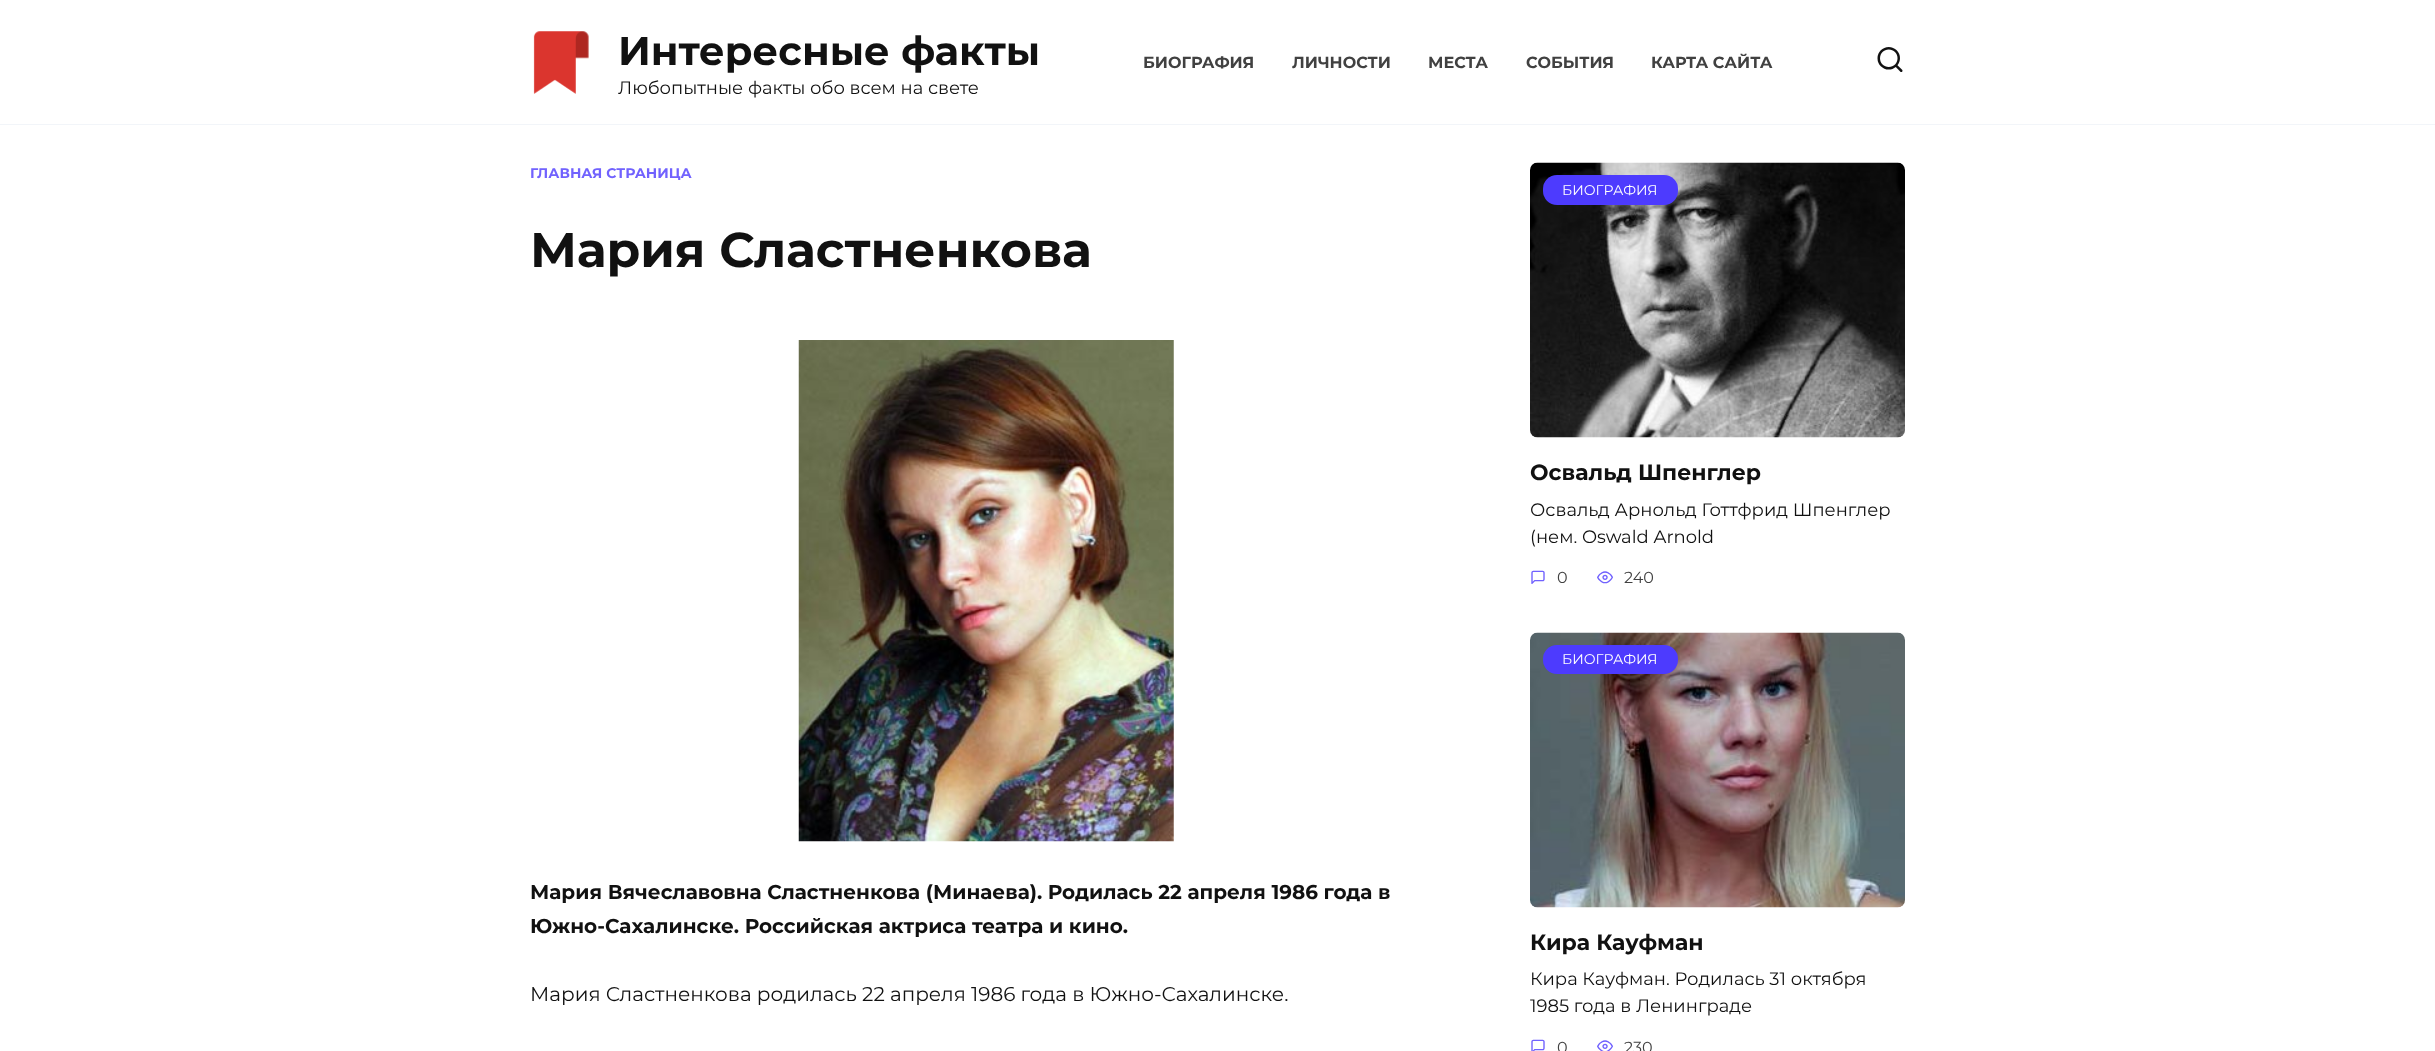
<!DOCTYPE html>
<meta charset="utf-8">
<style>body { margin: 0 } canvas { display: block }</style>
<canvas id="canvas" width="2435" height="1051"></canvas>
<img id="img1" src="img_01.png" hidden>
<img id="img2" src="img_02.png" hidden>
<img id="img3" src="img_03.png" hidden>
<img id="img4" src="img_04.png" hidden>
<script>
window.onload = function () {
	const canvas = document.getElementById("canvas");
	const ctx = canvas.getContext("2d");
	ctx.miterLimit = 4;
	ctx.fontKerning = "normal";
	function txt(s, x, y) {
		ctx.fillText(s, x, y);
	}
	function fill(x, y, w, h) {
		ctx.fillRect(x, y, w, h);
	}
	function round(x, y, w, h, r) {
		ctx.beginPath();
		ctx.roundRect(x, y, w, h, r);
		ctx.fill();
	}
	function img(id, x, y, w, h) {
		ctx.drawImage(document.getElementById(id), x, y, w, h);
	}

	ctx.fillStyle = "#FFFFFF";
	fill(0, 0, 2435, 1051);
	ctx.fillStyle = "#F2F5F9";
	fill(0, 124, 2435, 1);
	img("img1", 533, 31, 56, 63);
	img("img2", 798, 340, 376, 502);
	img("img3", 1530, 162, 375, 276);
	ctx.fillStyle = "#4D3BFE";
	round(1543, 175, 135, 30, 14);
	img("img4", 1530, 632, 375, 276);
	round(1543, 645, 135, 29, 14);
	ctx.font = "bold 40px Montserrat";
	ctx.fillStyle = "#111111";
	txt("Интересные факты", 618, 65);
	ctx.font = "18px Montserrat";
	txt("Любопытные факты обо всем на свете", 618, 94);
	ctx.font = "bold 16px Montserrat";
	ctx.fillStyle = "#414141";
	txt("БИОГРАФИЯ", 1143, 68);
	txt("ЛИЧНОСТИ", 1292, 68);
	txt("МЕСТА", 1428, 68);
	txt("CОБЫТИЯ", 1526, 68);
	txt("КАРТА САЙТА", 1651, 68);
	ctx.font = "30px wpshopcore";
	ctx.fillStyle = "#111111";
	txt("🔍", 1875, 72);
	ctx.font = "bold 14px Montserrat";
	ctx.fillStyle = "#7162FE";
	txt("ГЛАВНАЯ СТРАНИЦА", 530, 178);
	ctx.font = "bold 48.75px Montserrat";
	ctx.fillStyle = "#111111";
	txt("Мария Сластненкова", 530, 267);
	ctx.font = "bold 20px Montserrat";
	txt("Мария Вячеславовна Сластненкова (Минаева). Родилась 22 апреля 1986 года в", 530, 899);
	txt("Южно-Сахалинске. Российская актриса театра и кино.", 530, 933);
	ctx.font = "20px Montserrat";
	txt("Мария Сластненкова родилась 22 апреля 1986 года в Южно-Сахалинске.", 530, 1001);
	ctx.font = "14px Montserrat";
	ctx.fillStyle = "#FFFFFF";
	txt("БИОГРАФИЯ", 1562, 195);
	ctx.font = "bold 22px Montserrat";
	ctx.fillStyle = "#111111";
	txt("Освальд Шпенглер", 1530, 480);
	ctx.font = "18px Montserrat";
	txt("Освальд Арнольд Готтфрид Шпенглер", 1530, 516);
	txt("(нем. Oswald Arnold", 1530, 543);
	ctx.font = "16px wpshopcore";
	ctx.fillStyle = "#7162FE";
	txt("💬", 1530, 584);
	ctx.font = "16px Montserrat";
	ctx.fillStyle = "#414141";
	txt("0", 1557, 583);
	ctx.font = "16px wpshopcore";
	ctx.fillStyle = "#7162FE";
	txt("👀", 1597, 584);
	ctx.font = "16px Montserrat";
	ctx.fillStyle = "#414141";
	txt("240", 1624, 583);
	ctx.font = "14px Montserrat";
	ctx.fillStyle = "#FFFFFF";
	txt("БИОГРАФИЯ", 1562, 664);
	ctx.font = "bold 22px Montserrat";
	ctx.fillStyle = "#111111";
	txt("Кира Кауфман", 1530, 950);
	ctx.font = "18px Montserrat";
	txt("Кира Кауфман. Родилась 31 октября", 1530, 985);
	txt("1985 года в Ленинграде", 1530, 1012);
	ctx.font = "16px wpshopcore";
	ctx.fillStyle = "#7162FE";
	txt("💬", 1530, 1053);
	ctx.font = "16px Montserrat";
	ctx.fillStyle = "#414141";
	txt("0", 1557, 1053);
	ctx.font = "16px wpshopcore";
	ctx.fillStyle = "#7162FE";
	txt("👀", 1597, 1053);
	ctx.font = "16px Montserrat";
	ctx.fillStyle = "#414141";
	txt("230", 1624, 1053);
};
</script>
